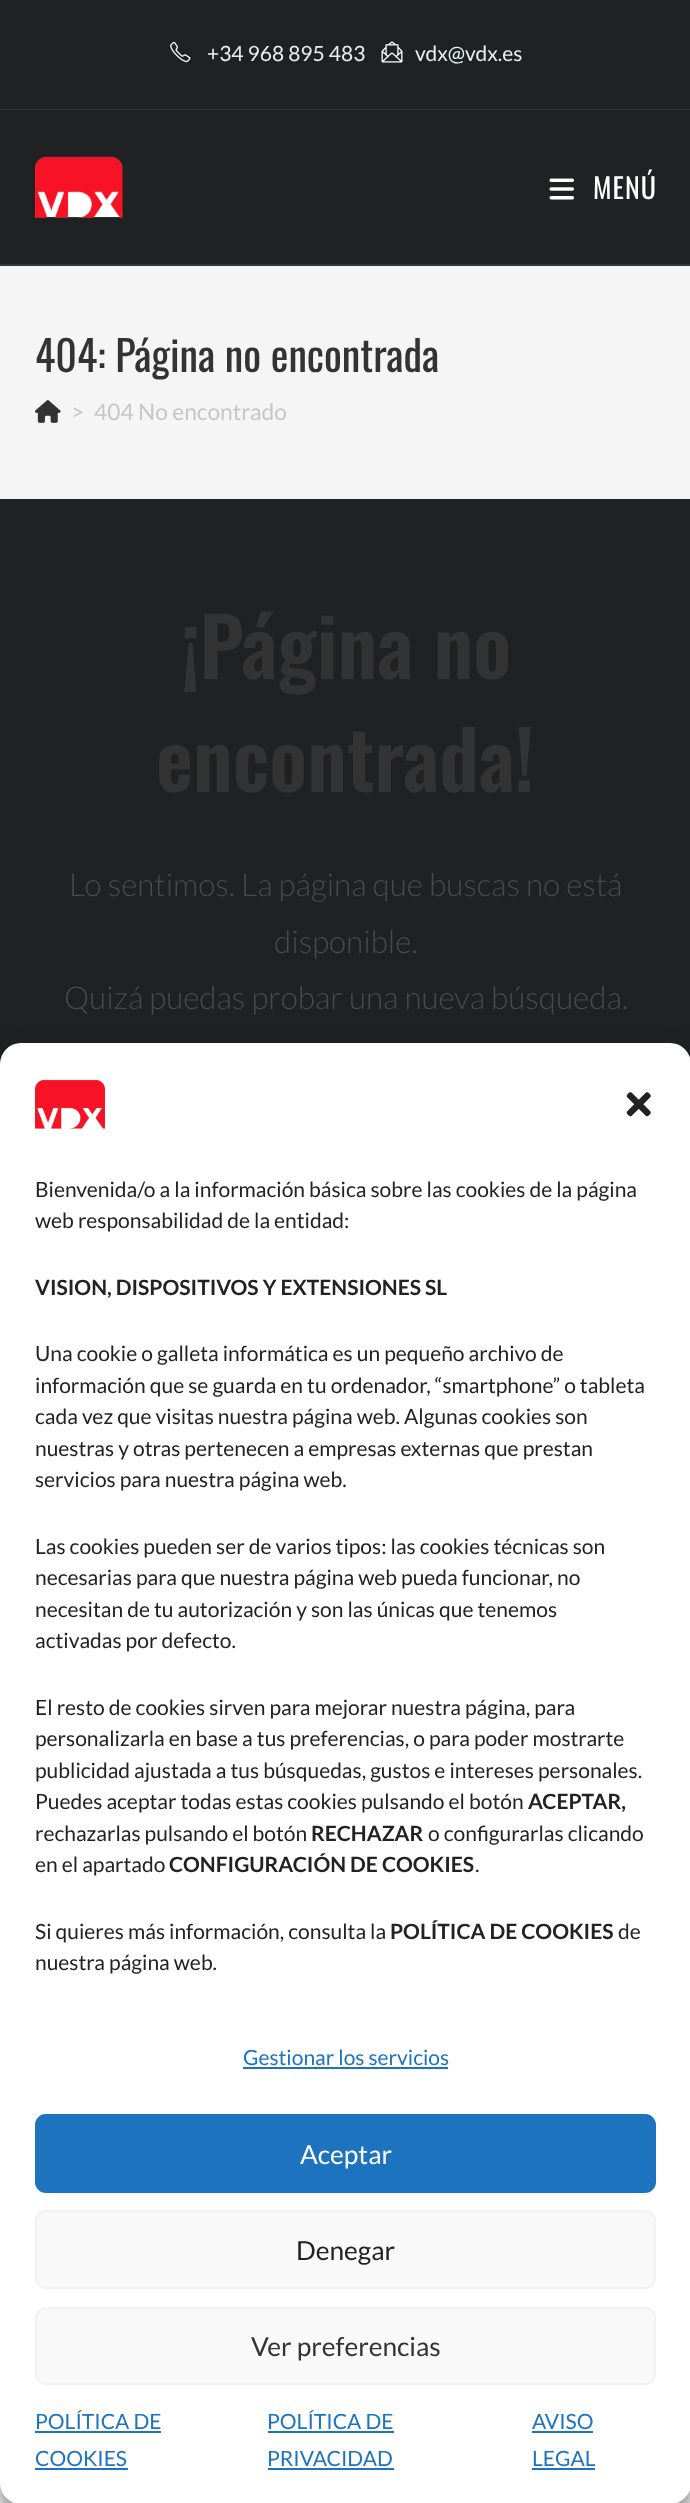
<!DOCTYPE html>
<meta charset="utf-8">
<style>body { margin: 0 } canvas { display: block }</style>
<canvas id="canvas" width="690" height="2503"></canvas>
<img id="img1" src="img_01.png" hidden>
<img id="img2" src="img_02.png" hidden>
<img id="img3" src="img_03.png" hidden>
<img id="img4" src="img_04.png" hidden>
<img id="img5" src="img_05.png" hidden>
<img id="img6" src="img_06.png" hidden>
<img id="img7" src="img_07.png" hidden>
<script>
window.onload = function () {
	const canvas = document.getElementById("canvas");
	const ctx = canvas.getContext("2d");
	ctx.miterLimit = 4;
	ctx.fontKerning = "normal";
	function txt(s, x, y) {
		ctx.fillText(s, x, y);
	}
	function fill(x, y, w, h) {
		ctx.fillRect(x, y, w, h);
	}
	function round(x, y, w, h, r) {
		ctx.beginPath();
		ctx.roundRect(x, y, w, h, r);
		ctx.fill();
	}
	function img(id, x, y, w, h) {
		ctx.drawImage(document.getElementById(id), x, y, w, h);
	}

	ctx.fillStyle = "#202123";
	fill(0, 0, 690, 2503);
	ctx.fillStyle = "#323539";
	fill(0, 109, 690, 1);
	img("img1", 170, 41, 21, 22);
	img("img2", 381, 41, 22, 22);
	fill(0, 264, 690, 2);
	img("img3", 35, 156, 88, 62);
	img("img4", 549, 178, 25, 22);
	ctx.fillStyle = "#F5F5F5";
	fill(0, 266, 690, 233);
	img("img5", 35, 400, 26, 23);
	fill(0, 2483, 690, 20);
	ctx.fillStyle = "rgba(0, 0, 0, 0.23)";
	ctx.filter = "blur(5px)";
	ctx.beginPath();
	ctx.roundRect(0, 1054, 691, 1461, 21);
	ctx.fill();
	ctx.filter = "none";
	ctx.fillStyle = "rgba(0, 0, 0, 0.19)";
	ctx.filter = "blur(17.5px)";
	ctx.beginPath();
	ctx.roundRect(0, 1061, 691, 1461, 21);
	ctx.fill();
	ctx.filter = "none";
	ctx.fillStyle = "#FFFFFF";
	round(0, 1043, 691, 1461, 21);
	img("img6", 35, 1079, 70, 50);
	img("img7", 626, 1092, 25, 25);
	ctx.fillStyle = "#1E73BE";
	fill(243, 2067, 205, 2);
	ctx.beginPath();
	ctx.roundRect(36, 2115, 619, 77, 10);
	ctx.fill();
	ctx.strokeStyle = "#1E73BE";
	ctx.lineWidth = 2;
	ctx.stroke();
	ctx.fillStyle = "#F9F9F9";
	ctx.beginPath();
	ctx.roundRect(36, 2211, 619, 77, 10);
	ctx.fill();
	ctx.strokeStyle = "#F2F2F2";
	ctx.stroke();
	ctx.beginPath();
	ctx.roundRect(36, 2308, 619, 76, 10);
	ctx.fill();
	ctx.stroke();
	ctx.fillStyle = "#1E73BE";
	fill(35, 2431, 126, 2);
	fill(35, 2468, 93, 2);
	fill(268, 2431, 126, 2);
	fill(268, 2468, 126, 2);
	fill(532, 2431, 61, 2);
	fill(532, 2468, 63, 2);
	ctx.font = "21px Lato";
	ctx.fillStyle = "#E4F0F5";
	txt("+34 968 895 483", 207, 61);
	txt("vdx@vdx.es", 415, 61);
	ctx.letterSpacing = "1px";
	ctx.font = "28px Oswald";
	ctx.fillStyle = "#FFFFFF";
	txt("MENÚ", 593, 199);
	ctx.letterSpacing = "0px";
	ctx.font = "42px Oswald";
	ctx.fillStyle = "#333333";
	txt("404: Página no encontrada", 35, 372);
	ctx.font = "22.75px Lato";
	ctx.fillStyle = "#C6C6C6";
	txt(">", 71, 420);
	txt("404 No encontrado", 94, 420);
	ctx.font = "600 80.5px Oswald";
	ctx.fillStyle = "#333333";
	txt("¡Página no", 181, 679);
	txt("encontrada!", 156, 792);
	ctx.font = "300 31.5px Lato";
	ctx.fillStyle = "#4A4A4A";
	txt("Lo sentimos. La página que buscas no está", 69, 896);
	txt("disponible.", 274, 953);
	txt("Quizá puedas probar una nueva búsqueda.", 64, 1009);
	ctx.font = "21px Lato";
	ctx.fillStyle = "#222222";
	txt("Bienvenida/o a la información básica sobre las cookies de la página", 35, 1197);
	txt("web responsabilidad de la entidad:", 35, 1228);
	ctx.font = "bold 21px Lato";
	txt("VISION, DISPOSITIVOS Y EXTENSIONES SL", 35, 1295);
	ctx.font = "21px Lato";
	txt("Una cookie o galleta informática es un pequeño archivo de", 35, 1361);
	txt("información que se guarda en tu ordenador, “smartphone” o tableta", 35, 1393);
	txt("cada vez que visitas nuestra página web. Algunas cookies son", 35, 1424);
	txt("nuestras y otras pertenecen a empresas externas que prestan", 35, 1456);
	txt("servicios para nuestra página web.", 35, 1487);
	txt("Las cookies pueden ser de varios tipos: las cookies técnicas son", 35, 1554);
	txt("necesarias para que nuestra página web pueda funcionar, no", 35, 1585);
	txt("necesitan de tu autorización y son las únicas que tenemos", 35, 1617);
	txt("activadas por defecto.", 35, 1648);
	txt("El resto de cookies sirven para mejorar nuestra página, para", 35, 1715);
	txt("personalizarla en base a tus preferencias, o para poder mostrarte", 35, 1746);
	txt("publicidad ajustada a tus búsquedas, gustos e intereses personales.", 35, 1778);
	txt("Puedes aceptar todas estas cookies pulsando el botón", 35, 1809);
	ctx.font = "bold 21px Lato";
	txt("ACEPTAR,", 528, 1809);
	ctx.font = "21px Lato";
	txt("rechazarlas pulsando el botón", 35, 1841);
	ctx.font = "bold 21px Lato";
	txt("RECHAZAR", 311, 1841);
	ctx.font = "21px Lato";
	txt("o configurarlas clicando", 428, 1841);
	txt("en el apartado", 35, 1872);
	ctx.font = "bold 21px Lato";
	txt("CONFIGURACIÓN DE COOKIES", 169, 1872);
	ctx.font = "21px Lato";
	txt(".", 475, 1872);
	txt("Si quieres más información, consulta la", 35, 1939);
	ctx.font = "bold 21px Lato";
	txt("POLÍTICA DE COOKIES", 390, 1939);
	ctx.font = "21px Lato";
	txt("de", 618, 1939);
	txt("nuestra página web.", 35, 1970);
	ctx.fillStyle = "#1E73BE";
	txt("Gestionar los servicios", 243, 2065);
	ctx.font = "26.25px Lato";
	ctx.fillStyle = "#FFFFFF";
	txt("Aceptar", 300, 2164);
	ctx.fillStyle = "#222222";
	txt("Denegar", 296, 2260);
	ctx.fillStyle = "#333333";
	txt("Ver preferencias", 251, 2356);
	ctx.font = "21px Lato";
	ctx.fillStyle = "#1E73BE";
	txt("POLÍTICA DE", 35, 2429);
	txt("COOKIES", 35, 2466);
	txt("POLÍTICA DE", 267, 2429);
	txt("PRIVACIDAD", 267, 2466);
	txt("AVISO", 532, 2429);
	txt("LEGAL", 532, 2466);
};
</script>
